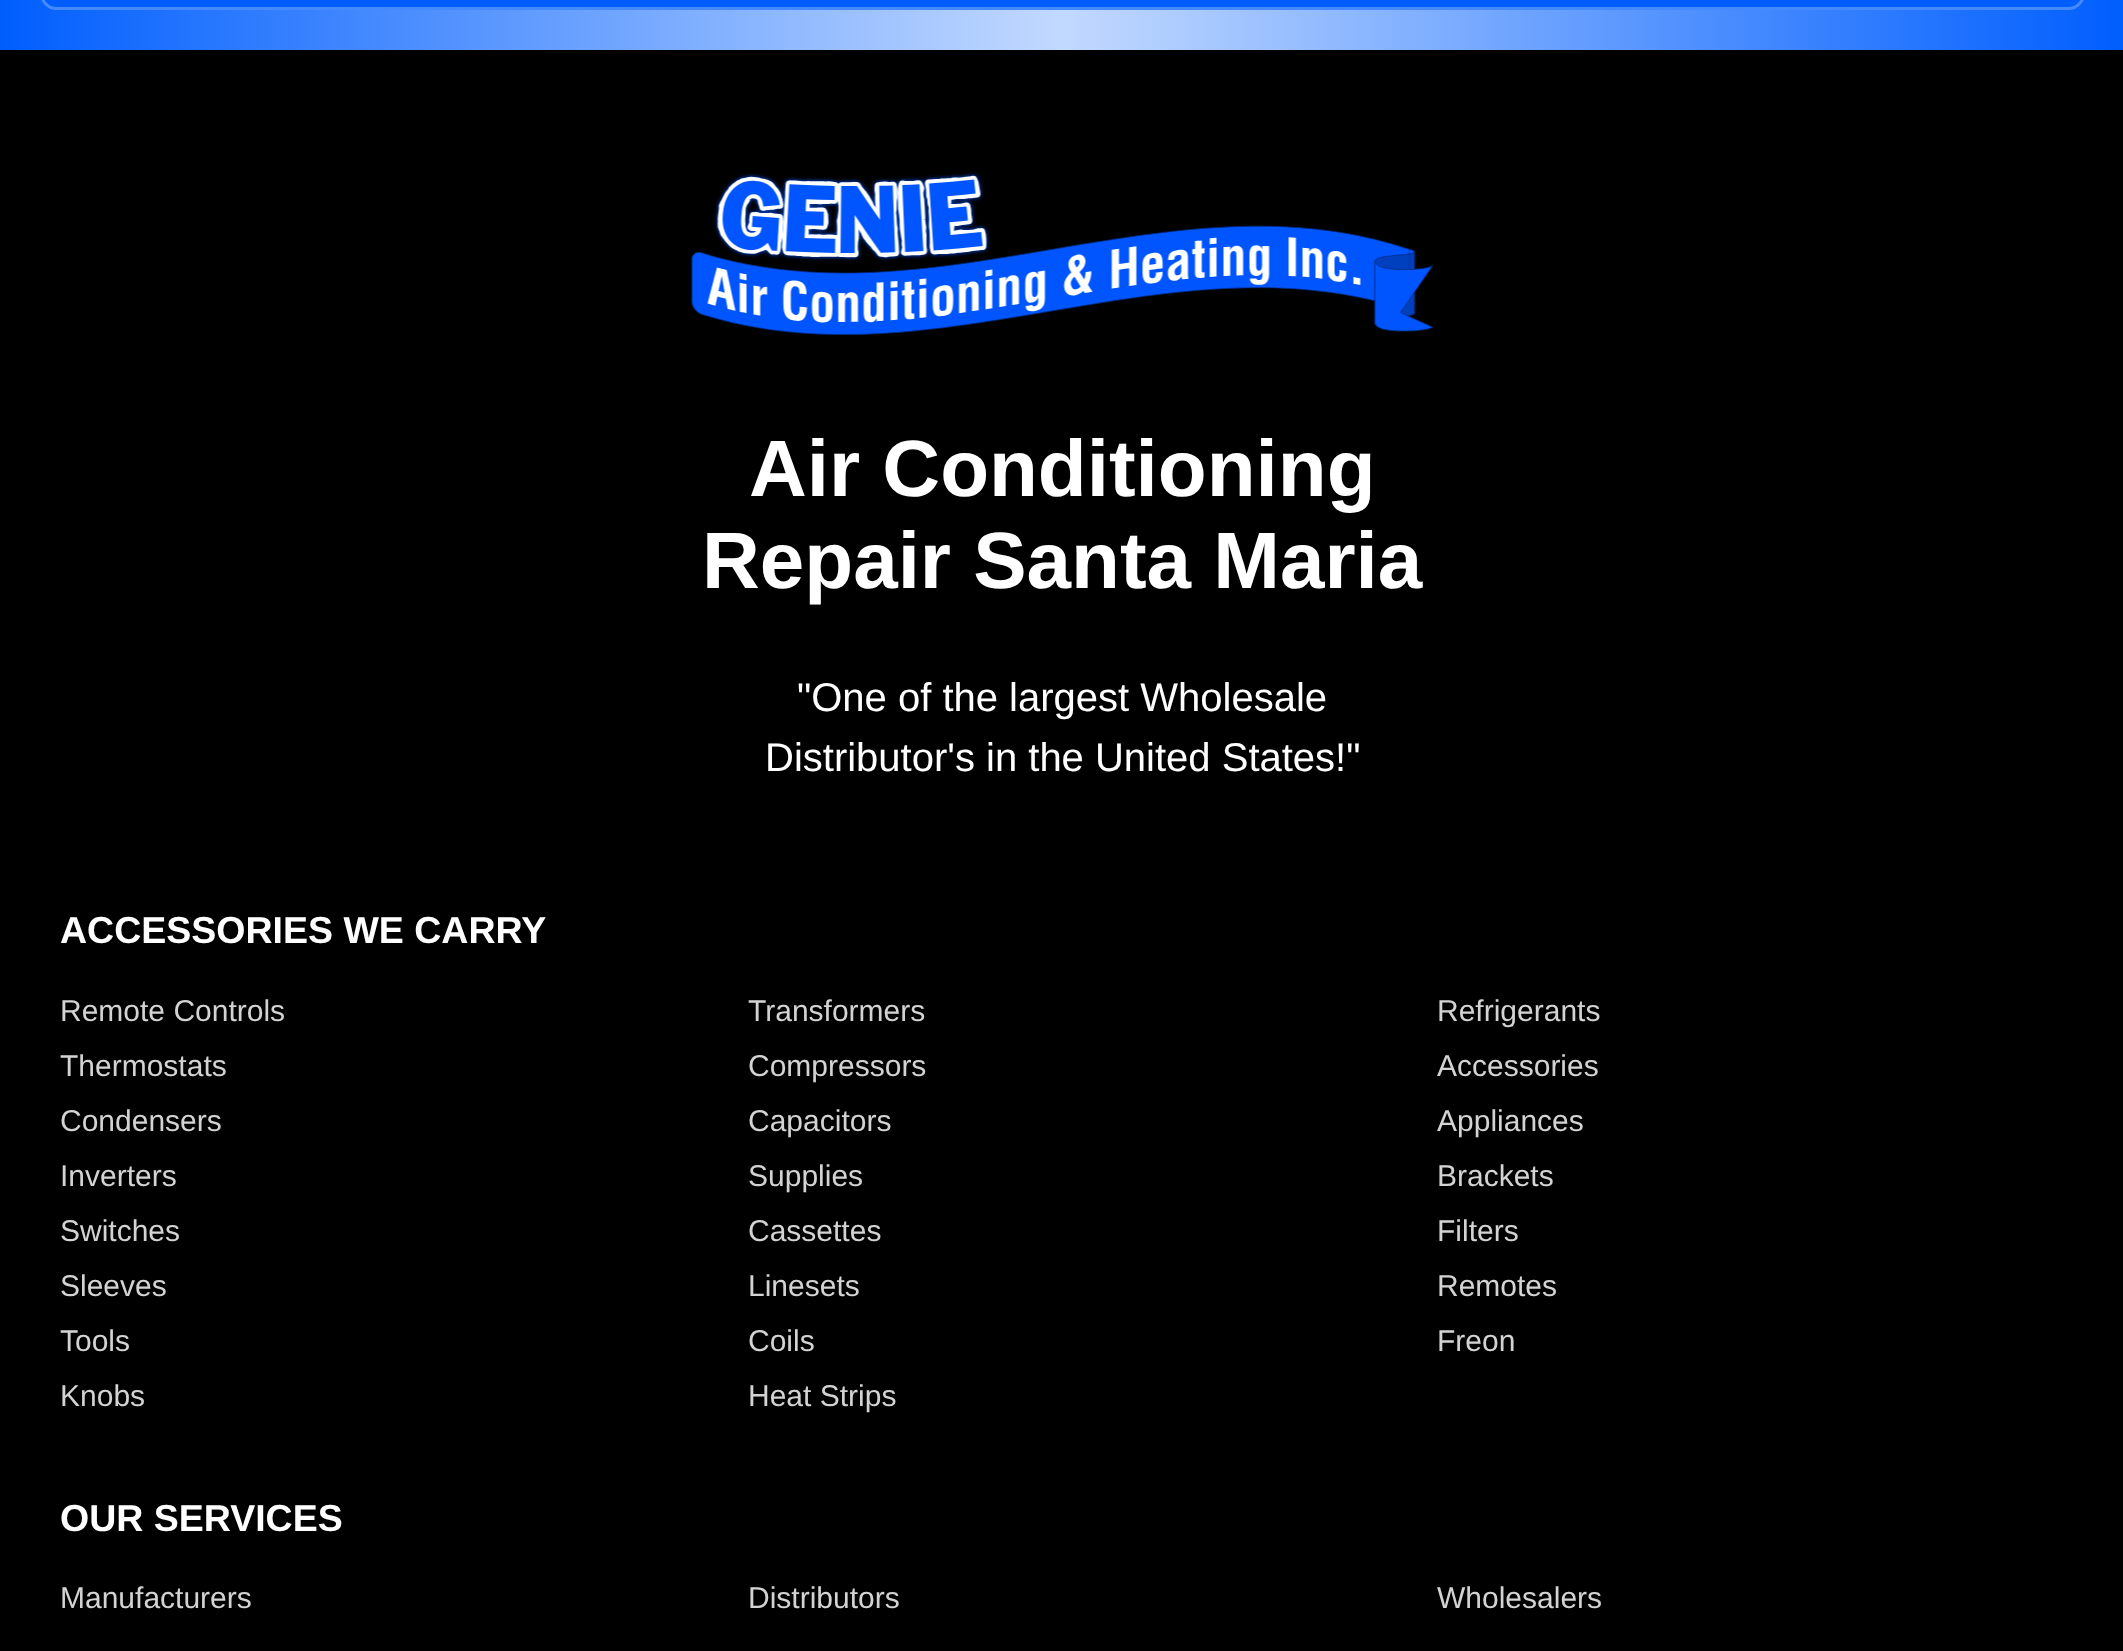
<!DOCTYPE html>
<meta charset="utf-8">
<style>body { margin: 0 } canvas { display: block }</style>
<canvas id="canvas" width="2123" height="1651"></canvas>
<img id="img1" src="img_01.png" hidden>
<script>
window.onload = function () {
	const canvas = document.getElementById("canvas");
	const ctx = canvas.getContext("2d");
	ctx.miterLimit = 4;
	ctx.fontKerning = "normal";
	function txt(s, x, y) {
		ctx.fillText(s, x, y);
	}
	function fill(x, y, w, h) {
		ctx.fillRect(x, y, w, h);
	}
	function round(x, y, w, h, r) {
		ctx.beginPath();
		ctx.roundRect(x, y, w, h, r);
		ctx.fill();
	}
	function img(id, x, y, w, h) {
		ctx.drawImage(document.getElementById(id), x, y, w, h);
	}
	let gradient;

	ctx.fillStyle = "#FFFFFF";
	fill(0, 0, 2123, 1651);
	gradient = ctx.createLinearGradient(0, -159, 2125, -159);
	gradient.addColorStop(0, "#005EFE");
	gradient.addColorStop(0.5, "#C2D9FF");
	gradient.addColorStop(1, "#005EFE");
	ctx.fillStyle = gradient;
	fill(0, 0, 2123, 50);
	ctx.fillStyle = "#005EFE";
	round(40, -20, 2045, 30, 20);
	ctx.beginPath();
	ctx.roundRect(41.5, -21.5, 2042, 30, 18.5);
	ctx.strokeStyle = "rgba(255, 255, 255, 0.27)";
	ctx.lineWidth = 3;
	ctx.stroke();
	ctx.fillStyle = "#000000";
	fill(0, 50, 2123, 1601);
	img("img1", 690, 172, 744, 163);
	ctx.font = "bold 80px Liberation Sans";
	ctx.fillStyle = "#FFFFFF";
	txt("Air Conditioning", 749, 496);
	txt("Repair Santa Maria", 702, 588);
	ctx.font = "40px Liberation Sans";
	txt("\"One of the largest Wholesale", 797, 711);
	txt("Distributor's in the United States!\"", 765, 771);
	ctx.font = "bold 37.5px Liberation Sans";
	txt("ACCESSORIES WE CARRY", 60, 943);
	ctx.font = "30px Liberation Sans";
	ctx.fillStyle = "#D3D3D3";
	txt("Remote Controls", 60, 1021);
	txt("Transformers", 748, 1021);
	txt("Refrigerants", 1437, 1021);
	txt("Thermostats", 60, 1076);
	txt("Compressors", 748, 1076);
	txt("Accessories", 1437, 1076);
	txt("Condensers", 60, 1131);
	txt("Capacitors", 748, 1131);
	txt("Appliances", 1437, 1131);
	txt("Inverters", 60, 1186);
	txt("Supplies", 748, 1186);
	txt("Brackets", 1437, 1186);
	txt("Switches", 60, 1241);
	txt("Cassettes", 748, 1241);
	txt("Filters", 1437, 1241);
	txt("Sleeves", 60, 1296);
	txt("Linesets", 748, 1296);
	txt("Remotes", 1437, 1296);
	txt("Tools", 60, 1351);
	txt("Coils", 748, 1351);
	txt("Freon", 1437, 1351);
	txt("Knobs", 60, 1406);
	txt("Heat Strips", 748, 1406);
	ctx.font = "bold 37.5px Liberation Sans";
	ctx.fillStyle = "#FFFFFF";
	txt("OUR SERVICES", 60, 1531);
	ctx.font = "30px Liberation Sans";
	ctx.fillStyle = "#D3D3D3";
	txt("Manufacturers", 60, 1608);
	txt("Distributors", 748, 1608);
	txt("Wholesalers", 1437, 1608);
};
</script>
